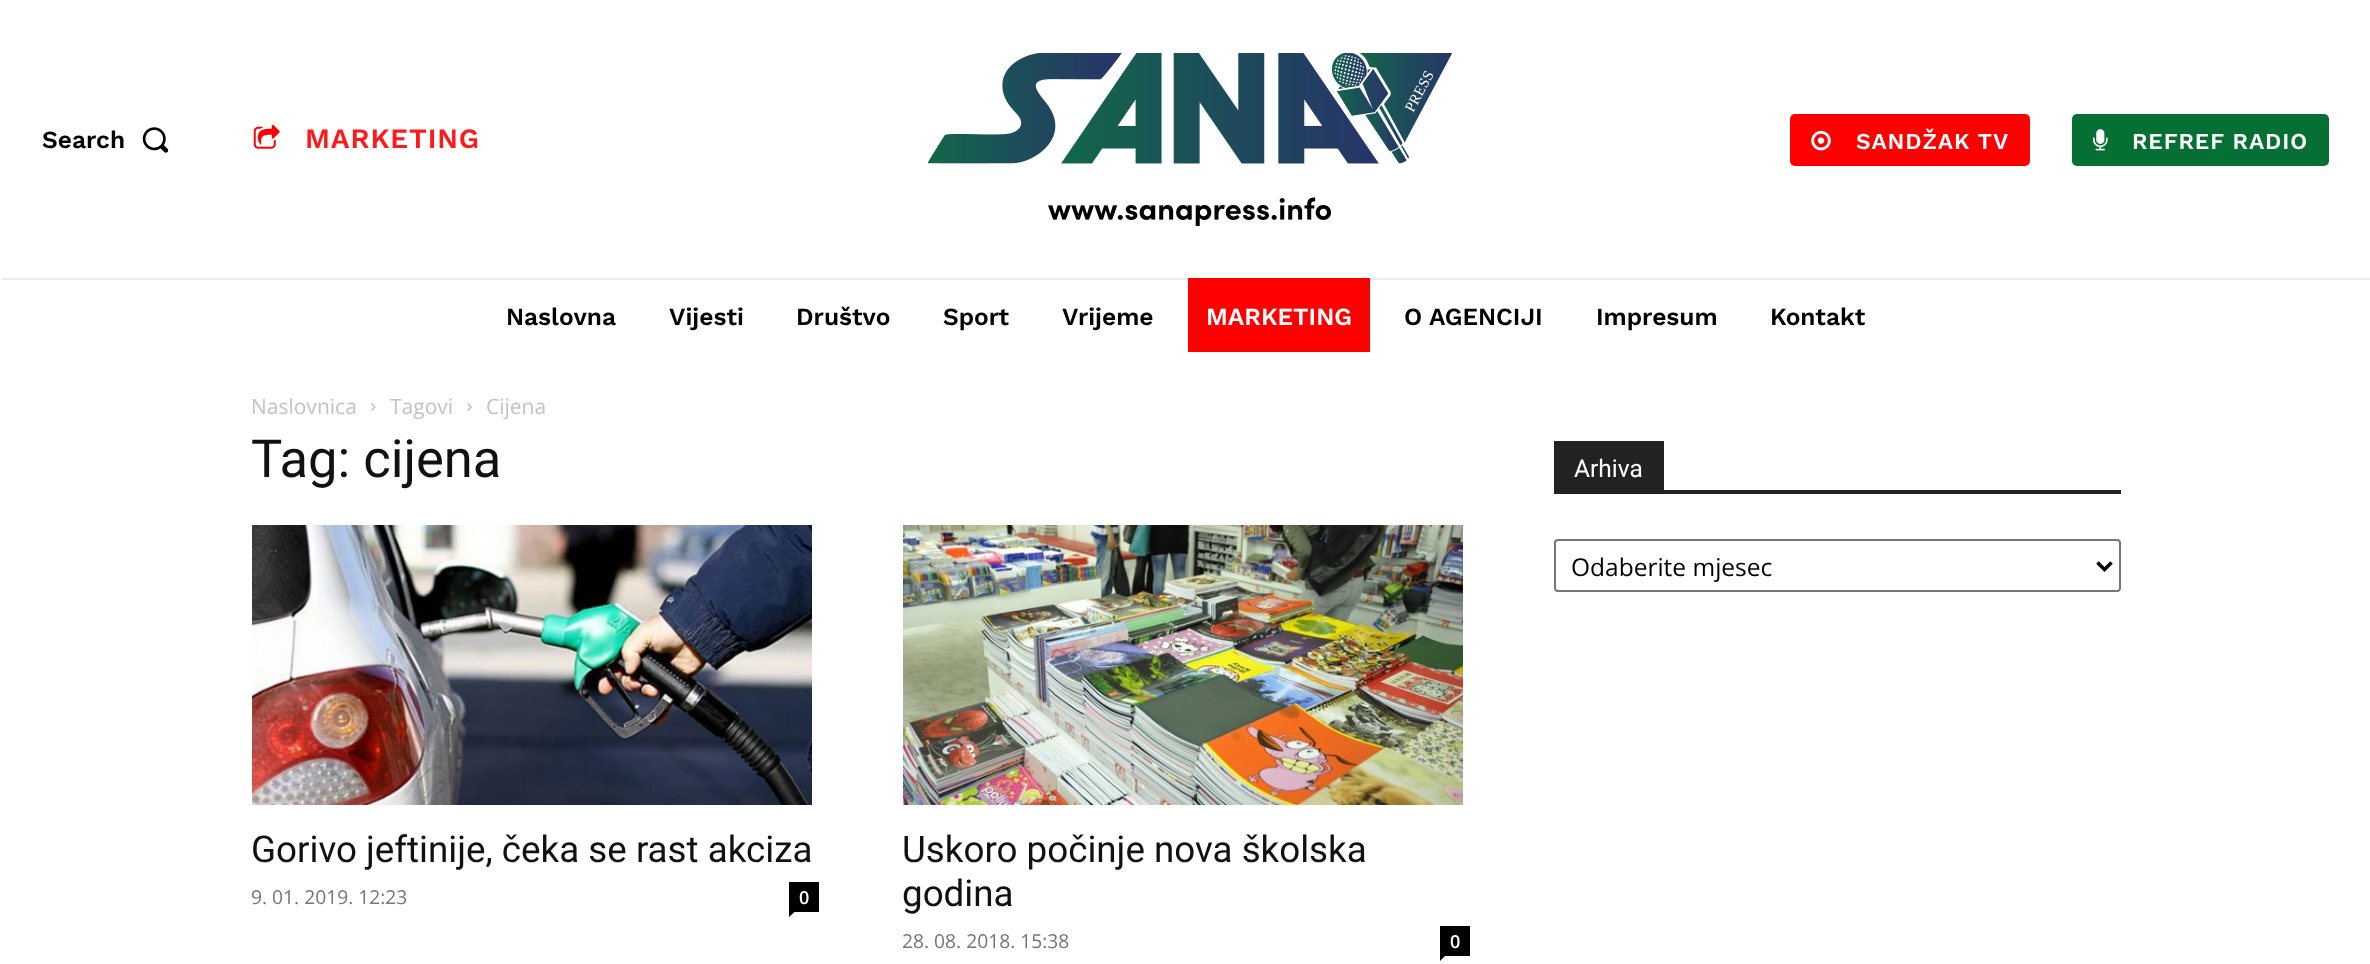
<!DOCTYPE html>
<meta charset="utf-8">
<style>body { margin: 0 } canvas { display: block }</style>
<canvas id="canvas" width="2370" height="964"></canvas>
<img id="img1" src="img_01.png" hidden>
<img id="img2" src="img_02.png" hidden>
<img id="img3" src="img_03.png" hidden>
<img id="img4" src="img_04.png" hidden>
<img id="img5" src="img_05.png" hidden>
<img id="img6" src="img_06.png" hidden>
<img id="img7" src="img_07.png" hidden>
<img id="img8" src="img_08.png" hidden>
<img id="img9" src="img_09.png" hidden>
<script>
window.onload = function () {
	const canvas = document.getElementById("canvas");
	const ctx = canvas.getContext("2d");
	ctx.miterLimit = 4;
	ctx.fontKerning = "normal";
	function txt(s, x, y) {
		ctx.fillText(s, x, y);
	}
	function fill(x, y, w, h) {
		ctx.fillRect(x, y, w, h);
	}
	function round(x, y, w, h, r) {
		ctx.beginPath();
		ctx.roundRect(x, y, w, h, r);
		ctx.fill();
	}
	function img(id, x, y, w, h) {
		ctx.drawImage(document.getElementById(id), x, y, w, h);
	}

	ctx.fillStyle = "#FFFFFF";
	fill(0, 0, 2370, 964);
	img("img1", 928, 53, 525, 173);
	img("img2", 142, 127, 27, 26);
	img("img3", 253, 124, 27, 25);
	ctx.fillStyle = "#FF0000";
	round(1790, 114, 240, 52, 5);
	img("img4", 1811, 130, 20, 21);
	ctx.fillStyle = "#067034";
	round(2072, 114, 257, 52, 5);
	img("img5", 2093, 129, 15, 22);
	ctx.fillStyle = "#EAEAEA";
	fill(2, 278, 2368, 2);
	ctx.fillStyle = "#FF0000";
	fill(1188, 278, 182, 74);
	img("img6", 371, 403, 5, 8);
	img("img7", 467, 403, 5, 8);
	img("img8", 252, 525, 560, 280);
	ctx.fillStyle = "#000000";
	fill(789, 882, 30, 30);
	ctx.beginPath();
	ctx.moveTo(789, 912);
	ctx.lineTo(794.5, 912);
	ctx.lineTo(789, 917);
	ctx.closePath();
	ctx.fill();
	img("img9", 903, 525, 560, 280);
	fill(1440, 926, 30, 30);
	ctx.beginPath();
	ctx.moveTo(1440, 955.5);
	ctx.lineTo(1445.5, 955.5);
	ctx.lineTo(1440, 961);
	ctx.closePath();
	ctx.fill();
	ctx.fillStyle = "#222222";
	fill(1554, 490, 567, 4);
	fill(1554, 441, 110, 49);
	ctx.beginPath();
	ctx.roundRect(1555, 540, 565, 51, 3);
	ctx.strokeStyle = "#767676";
	ctx.lineWidth = 2;
	ctx.stroke();
	ctx.beginPath();
	ctx.moveTo(2097.5, 562.5);
	ctx.lineTo(2104.5, 569.5);
	ctx.lineTo(2111.5, 562.5);
	ctx.strokeStyle = "#000000";
	ctx.lineWidth = 3.5;
	ctx.stroke();
	ctx.font = "15px Liberation Serif";
	ctx.fillStyle = "#FFFFFF";
	ctx.save();
	ctx.translate(1413, 113);
	ctx.rotate(-61.4 * Math.PI / 180);
	ctx.fillText("PRESS", 0, 0);
	ctx.restore();
	ctx.font = "600 24.5px Work Sans";
	ctx.fillStyle = "#000000";
	txt("Search", 42, 148);
	ctx.letterSpacing = "0.9px";
	ctx.font = "600 28px Work Sans";
	ctx.fillStyle = "#FF1919";
	txt("MARKETING", 305, 148);
	ctx.font = "600 22.75px Work Sans";
	ctx.fillStyle = "#FFFFFF";
	txt("SANDŽAK TV", 1856, 149);
	txt("REFREF RADIO", 2132, 149);
	ctx.letterSpacing = "0px";
	ctx.font = "600 24.5px Work Sans";
	ctx.fillStyle = "#000000";
	txt("Naslovna", 506, 325);
	txt("Vijesti", 669, 325);
	txt("Društvo", 796, 325);
	txt("Sport", 943, 325);
	txt("Vrijeme", 1062, 325);
	ctx.fillStyle = "#FFFFFF";
	txt("MARKETING", 1206, 325);
	ctx.fillStyle = "#000000";
	txt("O AGENCIJI", 1404, 325);
	txt("Impresum", 1596, 325);
	txt("Kontakt", 1770, 325);
	ctx.font = "21px Open Sans";
	ctx.fillStyle = "#C3C3C3";
	txt("Naslovnica", 251, 414);
	txt("Tagovi", 390, 414);
	txt("Cijena", 486, 414);
	ctx.font = "52.5px Roboto";
	ctx.fillStyle = "#111111";
	txt("Tag: cijena", 251, 477);
	ctx.font = "36.75px Roboto";
	txt("Gorivo jeftinije, čeka se rast akciza", 251, 862);
	ctx.font = "19.25px Open Sans";
	ctx.fillStyle = "#767676";
	txt("9. 01. 2019. 12:23", 251, 904);
	ctx.font = "600 18px Open Sans";
	ctx.fillStyle = "#FFFFFF";
	txt("0", 799, 904);
	ctx.font = "36.75px Roboto";
	ctx.fillStyle = "#111111";
	txt("Uskoro počinje nova školska", 902, 862);
	txt("godina", 902, 906);
	ctx.font = "19.25px Open Sans";
	ctx.fillStyle = "#767676";
	txt("28. 08. 2018. 15:38", 902, 948);
	ctx.font = "600 18px Open Sans";
	ctx.fillStyle = "#FFFFFF";
	txt("0", 1450, 948);
	ctx.font = "24.5px Roboto";
	txt("Arhiva", 1574, 477);
	ctx.font = "24.5px Open Sans";
	ctx.fillStyle = "#000000";
	txt("Odaberite mjesec", 1571, 576);
};
</script>
